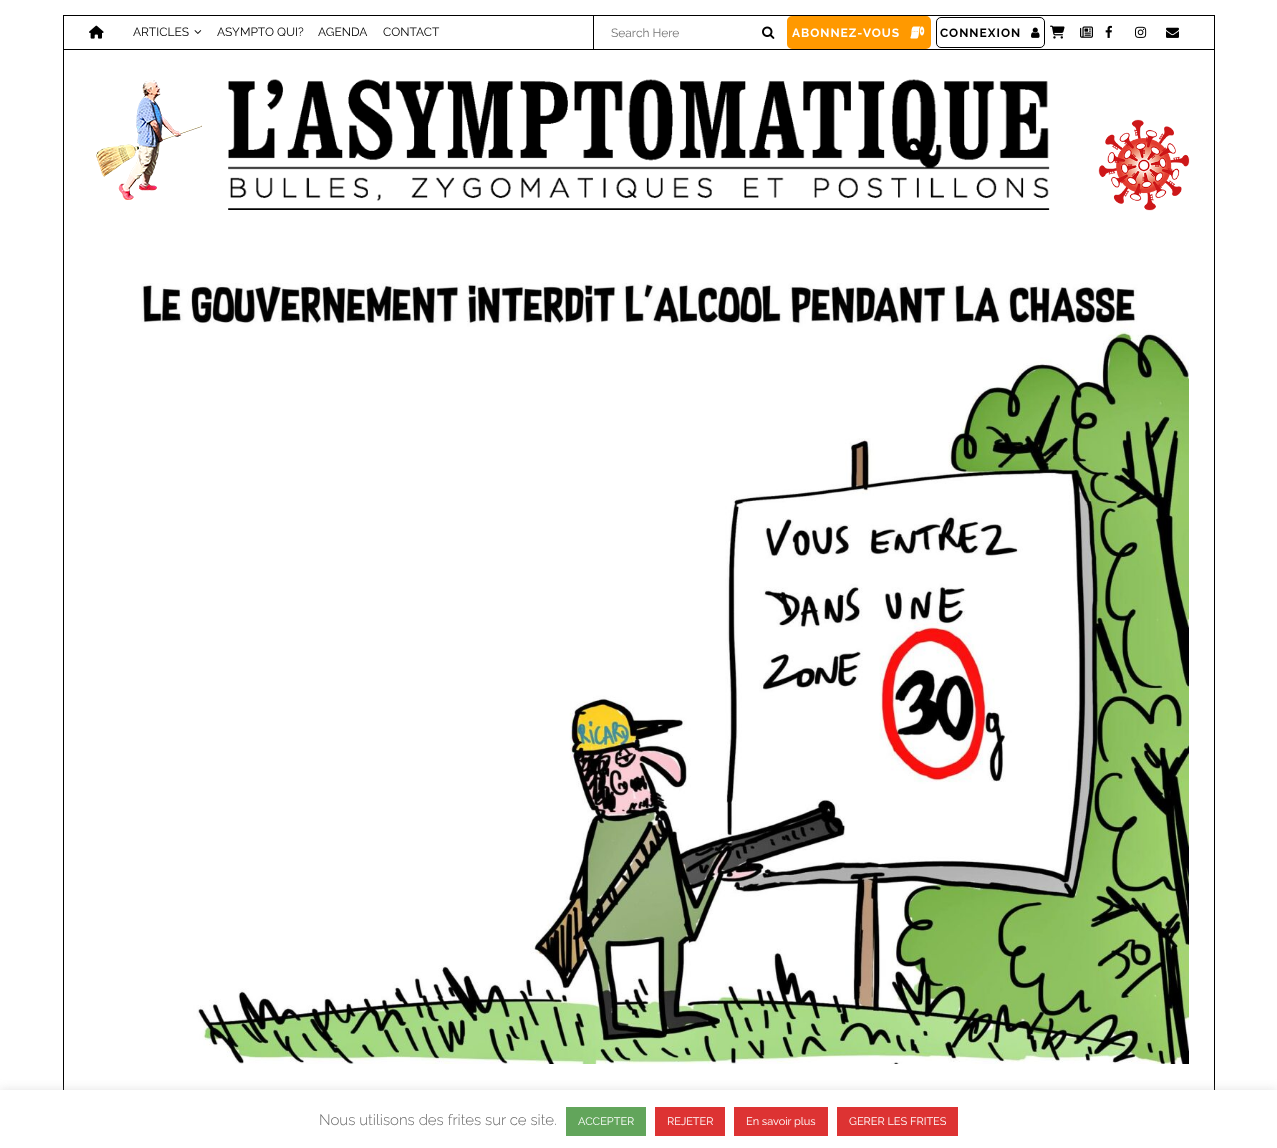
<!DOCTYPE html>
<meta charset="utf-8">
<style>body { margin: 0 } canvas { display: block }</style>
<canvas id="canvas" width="1277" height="1148"></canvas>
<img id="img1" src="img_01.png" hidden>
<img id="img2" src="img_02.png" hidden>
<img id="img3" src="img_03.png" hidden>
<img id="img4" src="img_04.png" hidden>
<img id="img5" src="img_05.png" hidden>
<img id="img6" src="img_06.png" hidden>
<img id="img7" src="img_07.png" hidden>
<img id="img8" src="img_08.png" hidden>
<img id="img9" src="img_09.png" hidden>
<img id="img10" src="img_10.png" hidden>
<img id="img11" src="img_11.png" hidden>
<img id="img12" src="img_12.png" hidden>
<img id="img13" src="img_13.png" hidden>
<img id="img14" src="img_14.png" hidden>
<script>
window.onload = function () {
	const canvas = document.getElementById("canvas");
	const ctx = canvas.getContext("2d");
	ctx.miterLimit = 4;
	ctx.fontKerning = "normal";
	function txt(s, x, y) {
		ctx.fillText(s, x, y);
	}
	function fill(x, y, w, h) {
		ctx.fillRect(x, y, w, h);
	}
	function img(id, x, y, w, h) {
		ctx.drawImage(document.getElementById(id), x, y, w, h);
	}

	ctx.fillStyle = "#FFFFFF";
	fill(0, 0, 1277, 1148);
	ctx.strokeStyle = "#000000";
	ctx.strokeRect(63.5, 15.5, 1151, 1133);
	ctx.fillStyle = "#000000";
	fill(64, 49, 1150, 1);
	img("img1", 89, 25, 15, 14);
	img("img2", 194, 30, 8, 4);
	fill(593, 16, 1, 33);
	img("img3", 762, 26, 13, 13);
	ctx.fillStyle = "#FF9900";
	ctx.beginPath();
	ctx.roundRect(788, 17, 142, 31, 4);
	ctx.fill();
	ctx.strokeStyle = "#FF9900";
	ctx.lineWidth = 2;
	ctx.stroke();
	img("img4", 910, 26, 15, 13);
	ctx.beginPath();
	ctx.roundRect(936.5, 17.5, 108, 30, 4.5);
	ctx.strokeStyle = "#000000";
	ctx.lineWidth = 1;
	ctx.stroke();
	img("img5", 1031, 27, 9, 11);
	img("img6", 1050, 25, 15, 14);
	img("img7", 1080, 26, 13, 12);
	img("img8", 1105, 25, 7, 13);
	img("img9", 1135, 26, 12, 12);
	img("img10", 1166, 27, 13, 11);
	img("img11", 96, 80, 106, 120);
	img("img12", 228, 79, 822, 131);
	img("img13", 1098, 119, 92, 92);
	img("img14", 141, 283, 1048, 781);
	ctx.fillStyle = "rgba(172, 171, 171, 0.3)";
	ctx.filter = "blur(5px)";
	ctx.beginPath();
	ctx.rect(0, 1089, 1277, 58);
	ctx.fill();
	ctx.filter = "none";
	ctx.fillStyle = "#FFFFFF";
	fill(0, 1090, 1277, 58);
	ctx.fillStyle = "#62A55B";
	fill(566, 1107, 80, 29);
	ctx.fillStyle = "#DD3333";
	fill(655, 1107, 70, 29);
	fill(734, 1107, 94, 29);
	fill(837, 1107, 121, 29);
	ctx.font = "12px Raleway";
	ctx.fillStyle = "#000000";
	txt("ARTICLES", 133, 36);
	txt("ASYMPTO QUI?", 217, 36);
	txt("AGENDA", 318, 36);
	txt("CONTACT", 383, 36);
	ctx.fillStyle = "#757575";
	txt("Search Here", 611, 37);
	ctx.letterSpacing = "1px";
	ctx.font = "bold 12px Raleway";
	ctx.fillStyle = "#FFFFFF";
	txt("ABONNEZ-VOUS", 792, 37);
	ctx.fillStyle = "#000000";
	txt("CONNEXION", 940, 37);
	ctx.letterSpacing = "0px";
	ctx.font = "300 15px Raleway";
	ctx.fillStyle = "#6B6B6B";
	txt("Nous utilisons des frites sur ce site.", 319, 1125);
	ctx.font = "11px Raleway";
	ctx.fillStyle = "#FFFFFF";
	txt("ACCEPTER", 578, 1125);
	txt("REJETER", 667, 1125);
	txt("En savoir plus", 746, 1125);
	txt("GERER LES FRITES", 849, 1125);
};
</script>
